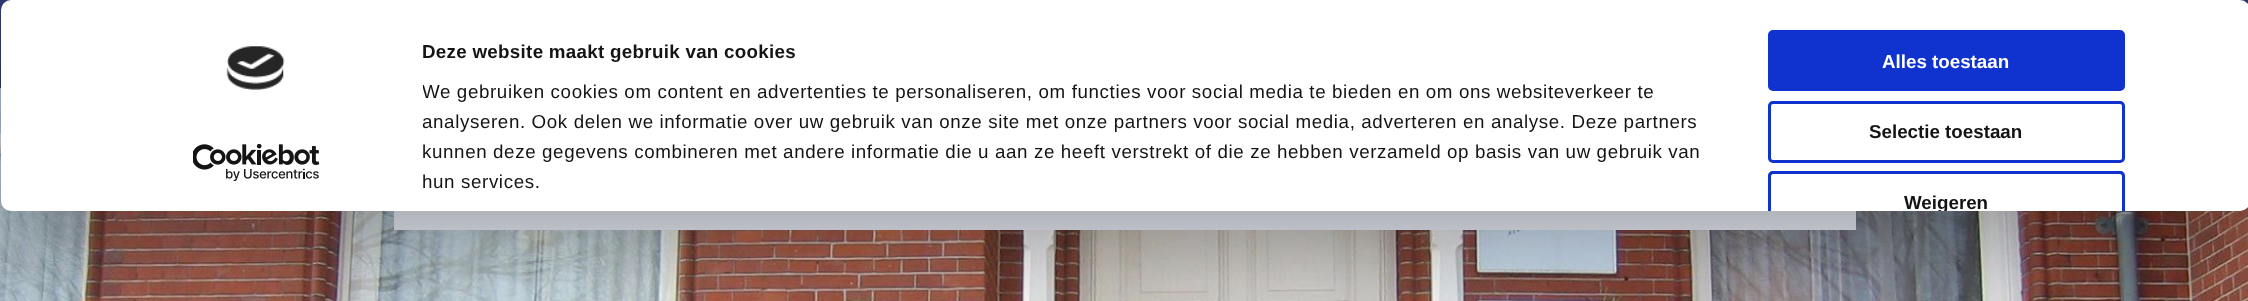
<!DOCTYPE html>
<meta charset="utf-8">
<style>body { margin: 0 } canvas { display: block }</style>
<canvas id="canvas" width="2248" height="301"></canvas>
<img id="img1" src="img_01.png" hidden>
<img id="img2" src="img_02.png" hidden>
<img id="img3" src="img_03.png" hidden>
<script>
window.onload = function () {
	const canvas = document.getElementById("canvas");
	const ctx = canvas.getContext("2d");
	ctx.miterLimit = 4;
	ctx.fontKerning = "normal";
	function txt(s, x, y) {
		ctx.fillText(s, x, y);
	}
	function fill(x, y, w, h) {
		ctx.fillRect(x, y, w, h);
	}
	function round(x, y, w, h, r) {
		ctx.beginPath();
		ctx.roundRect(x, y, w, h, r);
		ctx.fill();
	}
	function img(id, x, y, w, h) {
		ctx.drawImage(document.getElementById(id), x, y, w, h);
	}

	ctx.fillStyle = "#FFFFFF";
	fill(0, 0, 2248, 301);
	ctx.fillStyle = "#2E3A70";
	fill(0, 0, 2248, 88);
	img("img1", 0, 88, 2248, 213);
	ctx.fillStyle = "#EDF0FA";
	fill(394, 211, 1462, 19);
	ctx.save();
	ctx.beginPath();
	ctx.moveTo(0, 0);
	ctx.lineTo(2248, 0);
	ctx.lineTo(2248, 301);
	ctx.lineTo(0, 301);
	ctx.closePath();
	ctx.moveTo(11, 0);
	ctx.lineTo(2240, 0);
	ctx.bezierCurveTo(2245.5, 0, 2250, 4.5, 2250, 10);
	ctx.lineTo(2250, 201);
	ctx.bezierCurveTo(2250, 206.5, 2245.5, 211, 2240, 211);
	ctx.lineTo(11, 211);
	ctx.bezierCurveTo(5.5, 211, 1, 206.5, 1, 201);
	ctx.lineTo(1, 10);
	ctx.bezierCurveTo(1, 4.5, 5.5, 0, 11, 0);
	ctx.closePath();
	ctx.clip("evenodd");
	ctx.fillStyle = "rgba(0, 0, 0, 0.3)";
	ctx.filter = "blur(44px)";
	ctx.beginPath();
	ctx.roundRect(1, 38, 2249, 211, 10);
	ctx.fill();
	ctx.filter = "none";
	ctx.restore();
	ctx.fillStyle = "#FFFFFF";
	round(1, 0, 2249, 211, 10);
	img("img2", 226, 46, 59, 44);
	img("img3", 193, 144, 127, 37);
	ctx.fillStyle = "#1032CF";
	ctx.beginPath();
	ctx.roundRect(1769.5, 31.5, 354, 58, 3.5);
	ctx.fill();
	ctx.strokeStyle = "#1032CF";
	ctx.lineWidth = 3;
	ctx.stroke();
	ctx.beginPath();
	ctx.roundRect(1769.5, 102.5, 354, 59, 3.5);
	ctx.stroke();
	ctx.beginPath();
	ctx.moveTo(1773, 171);
	ctx.bezierCurveTo(1770, 171, 1768, 173, 1768, 176);
	ctx.lineTo(1768, 211);
	ctx.lineTo(1771, 211);
	ctx.lineTo(1771, 176);
	ctx.bezierCurveTo(1771, 175, 1772, 174, 1773, 174);
	ctx.lineTo(2120, 174);
	ctx.bezierCurveTo(2121, 174, 2122, 175, 2122, 176);
	ctx.lineTo(2122, 211);
	ctx.lineTo(2125, 211);
	ctx.lineTo(2125, 176);
	ctx.bezierCurveTo(2125, 173, 2123, 171, 2120, 171);
	ctx.closePath();
	ctx.fill();
	ctx.letterSpacing = "0.3px";
	ctx.font = "bold 18.75px Liberation Sans";
	ctx.fillStyle = "#141414";
	txt("Deze website maakt gebruik van cookies", 422, 58);
	ctx.save();
	ctx.beginPath();
	ctx.rect(423, 38, 1310, 187);
	ctx.clip();
	ctx.letterSpacing = "0.62px";
	ctx.font = "18.75px Liberation Sans";
	txt("We gebruiken cookies om content en advertenties te personaliseren, om functies voor social media te bieden en om ons websiteverkeer te", 422, 98);
	ctx.restore();
	ctx.letterSpacing = "0.62px";
	ctx.font = "18.75px Liberation Sans";
	txt("analyseren. Ook delen we informatie over uw gebruik van onze site met onze partners voor social media, adverteren en analyse. Deze partners", 422, 128);
	txt("kunnen deze gegevens combineren met andere informatie die u aan ze heeft verstrekt of die ze hebben verzameld op basis van uw gebruik van", 422, 158);
	txt("hun services.", 422, 188);
	ctx.letterSpacing = "0px";
	ctx.font = "bold 18.75px Liberation Sans";
	ctx.fillStyle = "#FFFFFF";
	txt("Alles toestaan", 1882, 68);
	ctx.fillStyle = "#141414";
	txt("Selectie toestaan", 1869, 138);
	ctx.save();
	ctx.beginPath();
	ctx.roundRect(1, 0, 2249, 211, 10);
	ctx.clip();
	txt("Weigeren", 1904, 209);
	ctx.restore();
};
</script>
